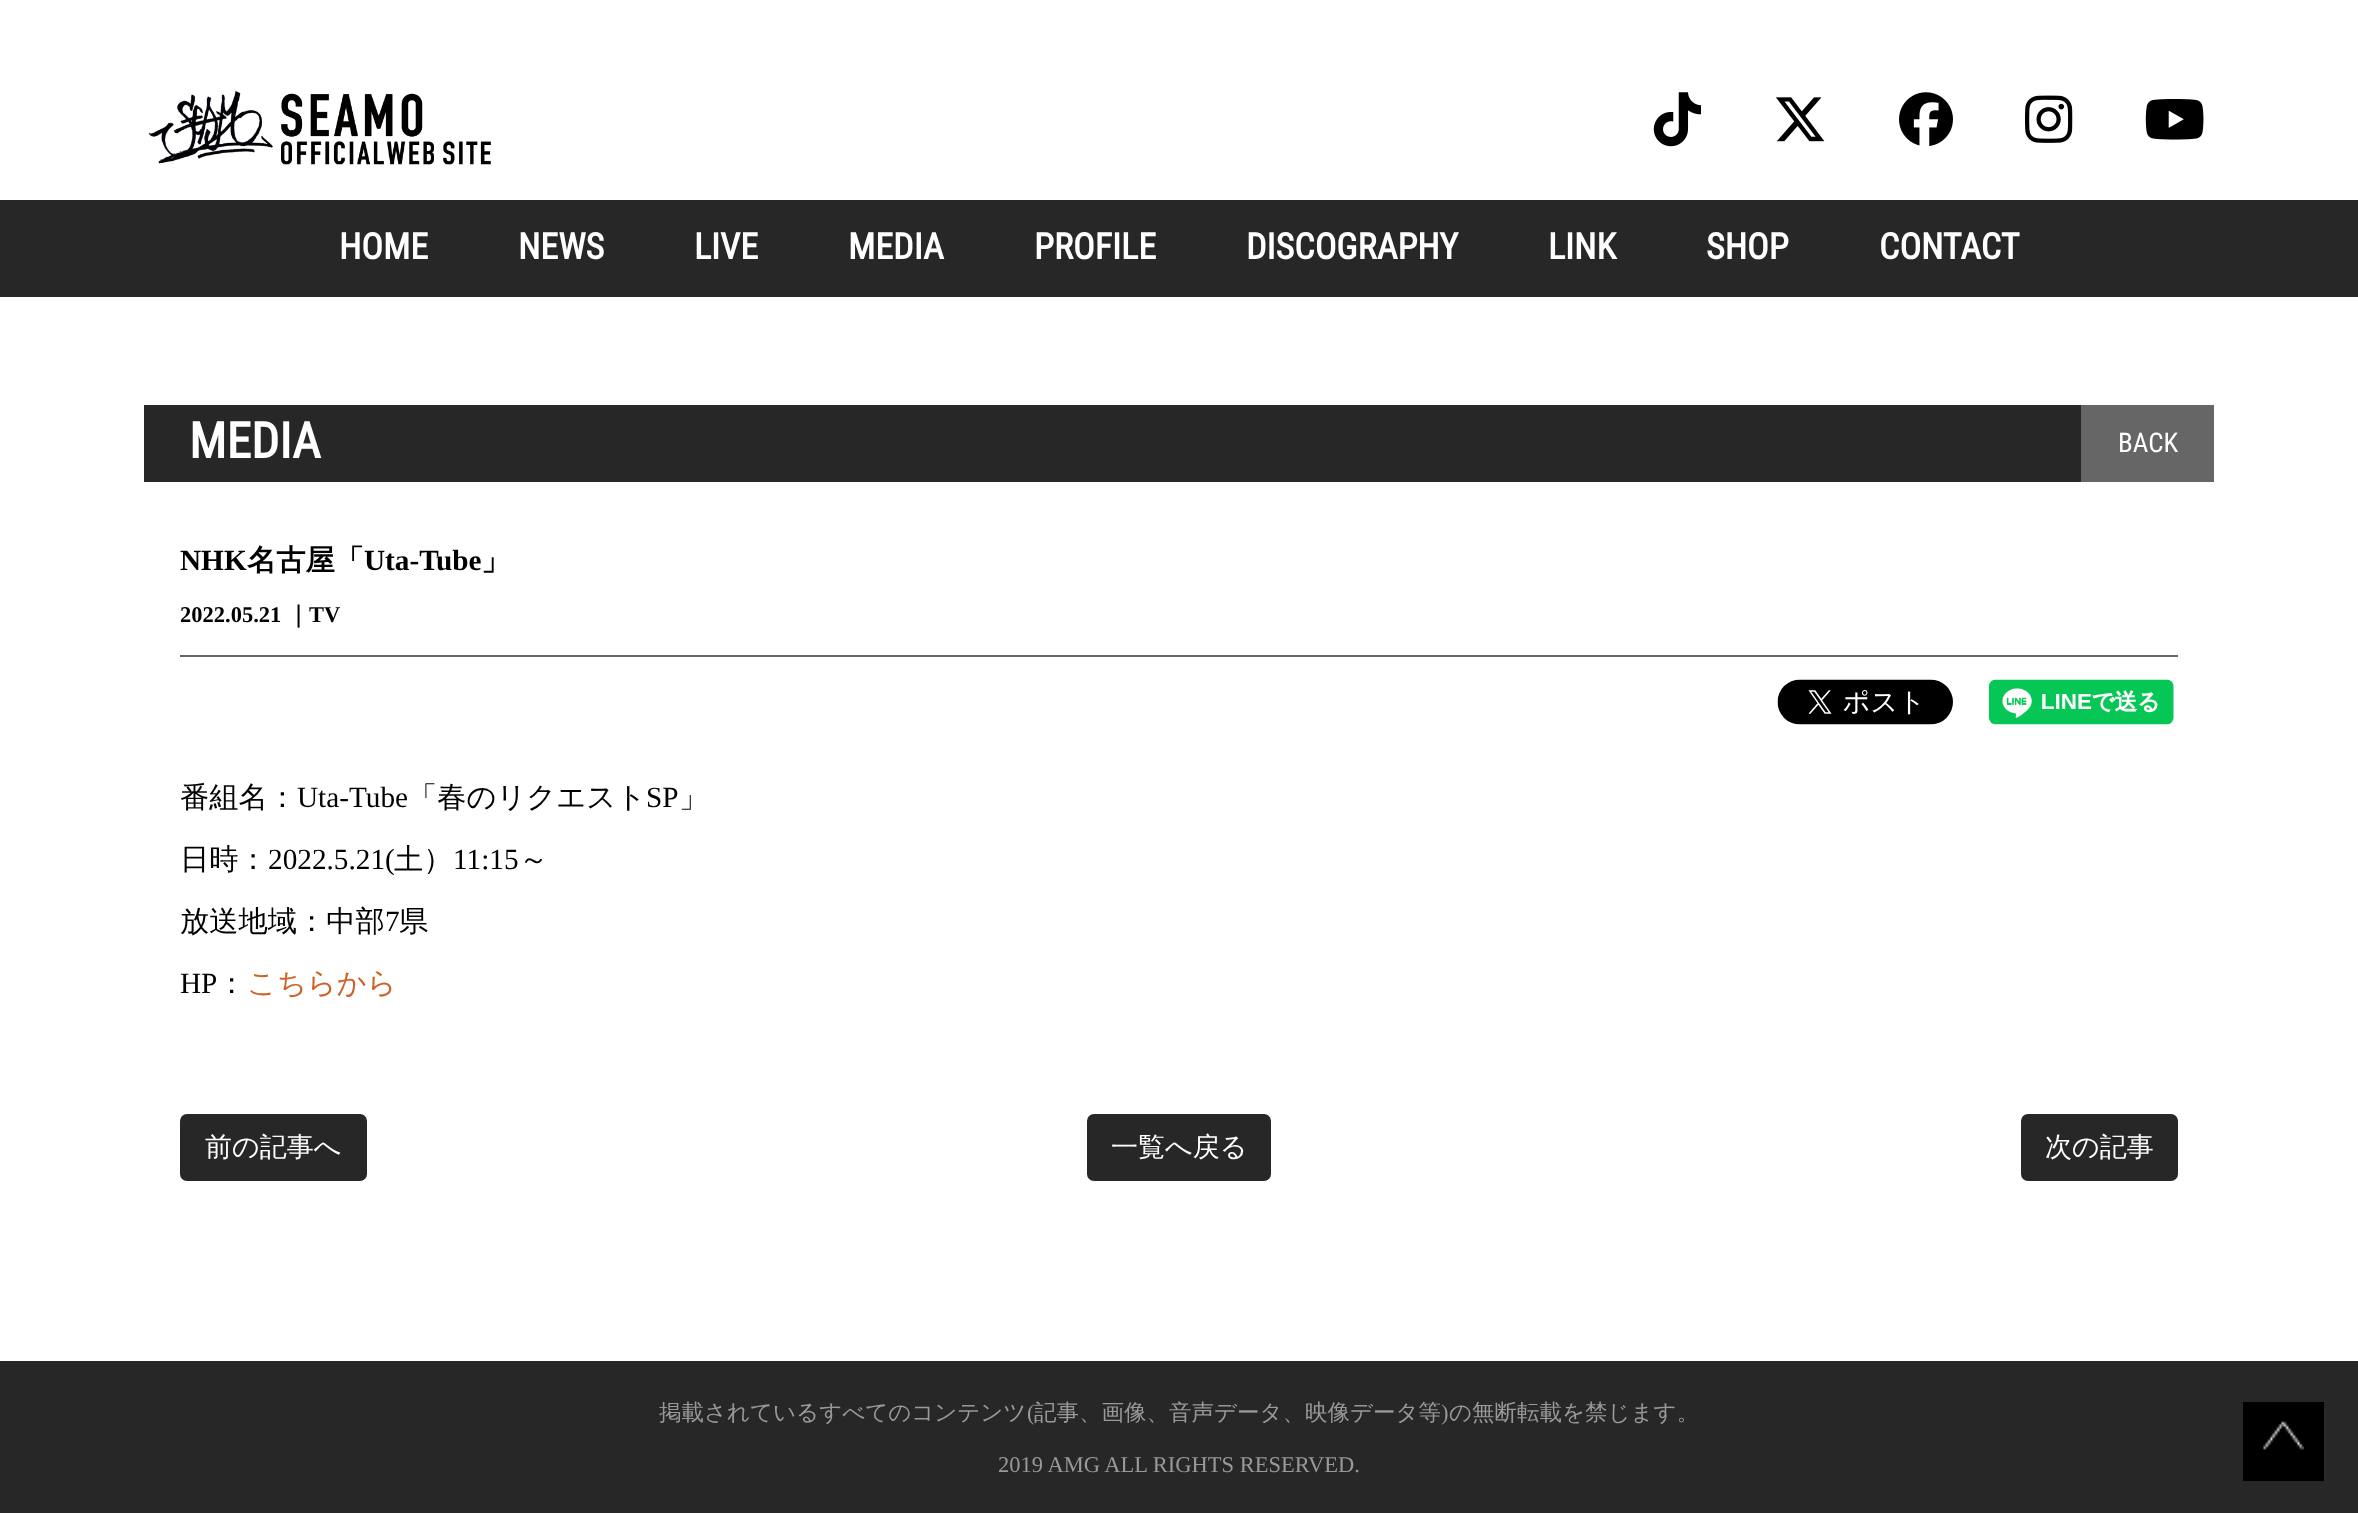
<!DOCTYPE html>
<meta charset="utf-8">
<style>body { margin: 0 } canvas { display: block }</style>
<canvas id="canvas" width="2358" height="1513"></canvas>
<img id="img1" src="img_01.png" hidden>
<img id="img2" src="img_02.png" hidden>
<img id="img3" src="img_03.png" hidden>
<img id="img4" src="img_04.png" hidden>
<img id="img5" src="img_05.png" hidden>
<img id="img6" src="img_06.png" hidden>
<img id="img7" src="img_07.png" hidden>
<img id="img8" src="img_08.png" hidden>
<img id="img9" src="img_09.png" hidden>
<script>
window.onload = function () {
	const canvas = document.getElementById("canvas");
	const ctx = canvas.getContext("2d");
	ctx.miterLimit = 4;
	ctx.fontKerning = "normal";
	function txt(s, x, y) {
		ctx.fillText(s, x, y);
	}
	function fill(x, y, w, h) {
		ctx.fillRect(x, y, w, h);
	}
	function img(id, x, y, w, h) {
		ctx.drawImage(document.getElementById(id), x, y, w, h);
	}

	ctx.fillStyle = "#FFFFFF";
	fill(0, 0, 2358, 1513);
	img("img1", 148, 90, 343, 75);
	img("img2", 1653, 92, 48, 55);
	img("img3", 1776, 97, 49, 45);
	img("img4", 1899, 92, 54, 54);
	img("img5", 2025, 95, 48, 48);
	img("img6", 2145, 99, 59, 41);
	ctx.fillStyle = "#272727";
	fill(0, 200, 2358, 97);
	fill(144, 405, 1937, 77);
	ctx.fillStyle = "#666666";
	fill(2081, 405, 133, 77);
	fill(180, 655, 1998, 2);
	img("img7", 1777, 679, 176, 46);
	img("img8", 1989, 679, 185, 46);
	ctx.fillStyle = "#272727";
	ctx.beginPath();
	ctx.roundRect(181, 1115, 185, 65, 6);
	ctx.fill();
	ctx.strokeStyle = "#272727";
	ctx.lineWidth = 2;
	ctx.stroke();
	ctx.beginPath();
	ctx.roundRect(1088, 1115, 182, 65, 6);
	ctx.fill();
	ctx.stroke();
	ctx.beginPath();
	ctx.roundRect(2022, 1115, 155, 65, 6);
	ctx.fill();
	ctx.stroke();
	fill(0, 1361, 2358, 152);
	ctx.fillStyle = "#000000";
	fill(2243, 1402, 81, 79);
	img("img9", 2263, 1421, 41, 29);
	ctx.font = "bold 36px Roboto Condensed";
	ctx.fillStyle = "#FFFFFF";
	txt("HOME", 339, 259);
	txt("NEWS", 518, 259);
	txt("LIVE", 694, 259);
	txt("MEDIA", 848, 259);
	txt("PROFILE", 1034, 259);
	txt("DISCOGRAPHY", 1246, 259);
	txt("LINK", 1548, 259);
	txt("SHOP", 1706, 259);
	txt("CONTACT", 1879, 259);
	ctx.font = "bold 49.5px Roboto Condensed";
	txt("MEDIA", 189, 458);
	ctx.font = "27px Roboto Condensed";
	txt("BACK", 2118, 452);
	ctx.font = "bold 29.25px Liberation Serif";
	ctx.fillStyle = "#000000";
	txt("NHK", 180, 570);
	ctx.font = "bold 29.25px WenQuanYi Zen Hei";
	txt("名古屋「", 247, 570);
	ctx.font = "bold 29.25px Liberation Serif";
	txt("Uta-Tube", 364, 570);
	ctx.font = "bold 29.25px WenQuanYi Zen Hei";
	txt("」", 481, 570);
	ctx.font = "bold 22.5px Liberation Serif";
	txt("2022.05.21", 180, 622);
	ctx.font = "bold 22.5px WenQuanYi Zen Hei";
	txt("｜", 287, 622);
	ctx.font = "bold 22.5px Liberation Serif";
	txt("TV", 309, 622);
	ctx.font = "500 29.25px WenQuanYi Zen Hei";
	txt("番組名：", 180, 807);
	ctx.font = "29.25px Liberation Serif";
	txt("Uta-Tube", 297, 807);
	ctx.font = "500 29.25px WenQuanYi Zen Hei";
	txt("「春のリクエスト", 408, 807);
	ctx.font = "29.25px Liberation Serif";
	txt("SP", 646, 807);
	ctx.font = "500 29.25px WenQuanYi Zen Hei";
	txt("」", 679, 807);
	txt("日時：", 180, 869);
	ctx.font = "29.25px Liberation Serif";
	txt("2022.5.21(", 268, 869);
	ctx.font = "500 29.25px WenQuanYi Zen Hei";
	txt("土）", 394, 869);
	ctx.font = "29.25px Liberation Serif";
	txt("11:15", 453, 869);
	ctx.font = "500 29.25px WenQuanYi Zen Hei";
	txt("～", 519, 869);
	txt("放送地域：中部", 180, 931);
	ctx.font = "29.25px Liberation Serif";
	txt("7", 385, 931);
	ctx.font = "500 29.25px WenQuanYi Zen Hei";
	txt("県", 399, 931);
	ctx.font = "29.25px Liberation Serif";
	txt("HP", 180, 993);
	ctx.font = "500 29.25px WenQuanYi Zen Hei";
	txt("：", 217, 993);
	ctx.fillStyle = "#D06228";
	txt("こちらから", 247, 993);
	ctx.font = "500 27px WenQuanYi Zen Hei";
	ctx.fillStyle = "#FFFFFF";
	txt("前の記事へ", 205, 1156);
	txt("一覧へ戻る", 1111, 1156);
	txt("次の記事", 2045, 1156);
	ctx.font = "500 22.5px WenQuanYi Zen Hei";
	ctx.fillStyle = "#999999";
	txt("掲載されているすべてのコンテンツ", 659, 1420);
	ctx.font = "22.5px Liberation Serif";
	txt("(", 1027, 1420);
	ctx.font = "500 22.5px WenQuanYi Zen Hei";
	txt("記事、画像、音声データ、映像データ等", 1034, 1420);
	ctx.font = "22.5px Liberation Serif";
	txt(")", 1441, 1420);
	ctx.font = "500 22.5px WenQuanYi Zen Hei";
	txt("の無断転載を禁じます。", 1449, 1420);
	ctx.font = "22.5px Liberation Serif";
	txt("2019 AMG ALL RIGHTS RESERVED.", 998, 1472);
};
</script>
